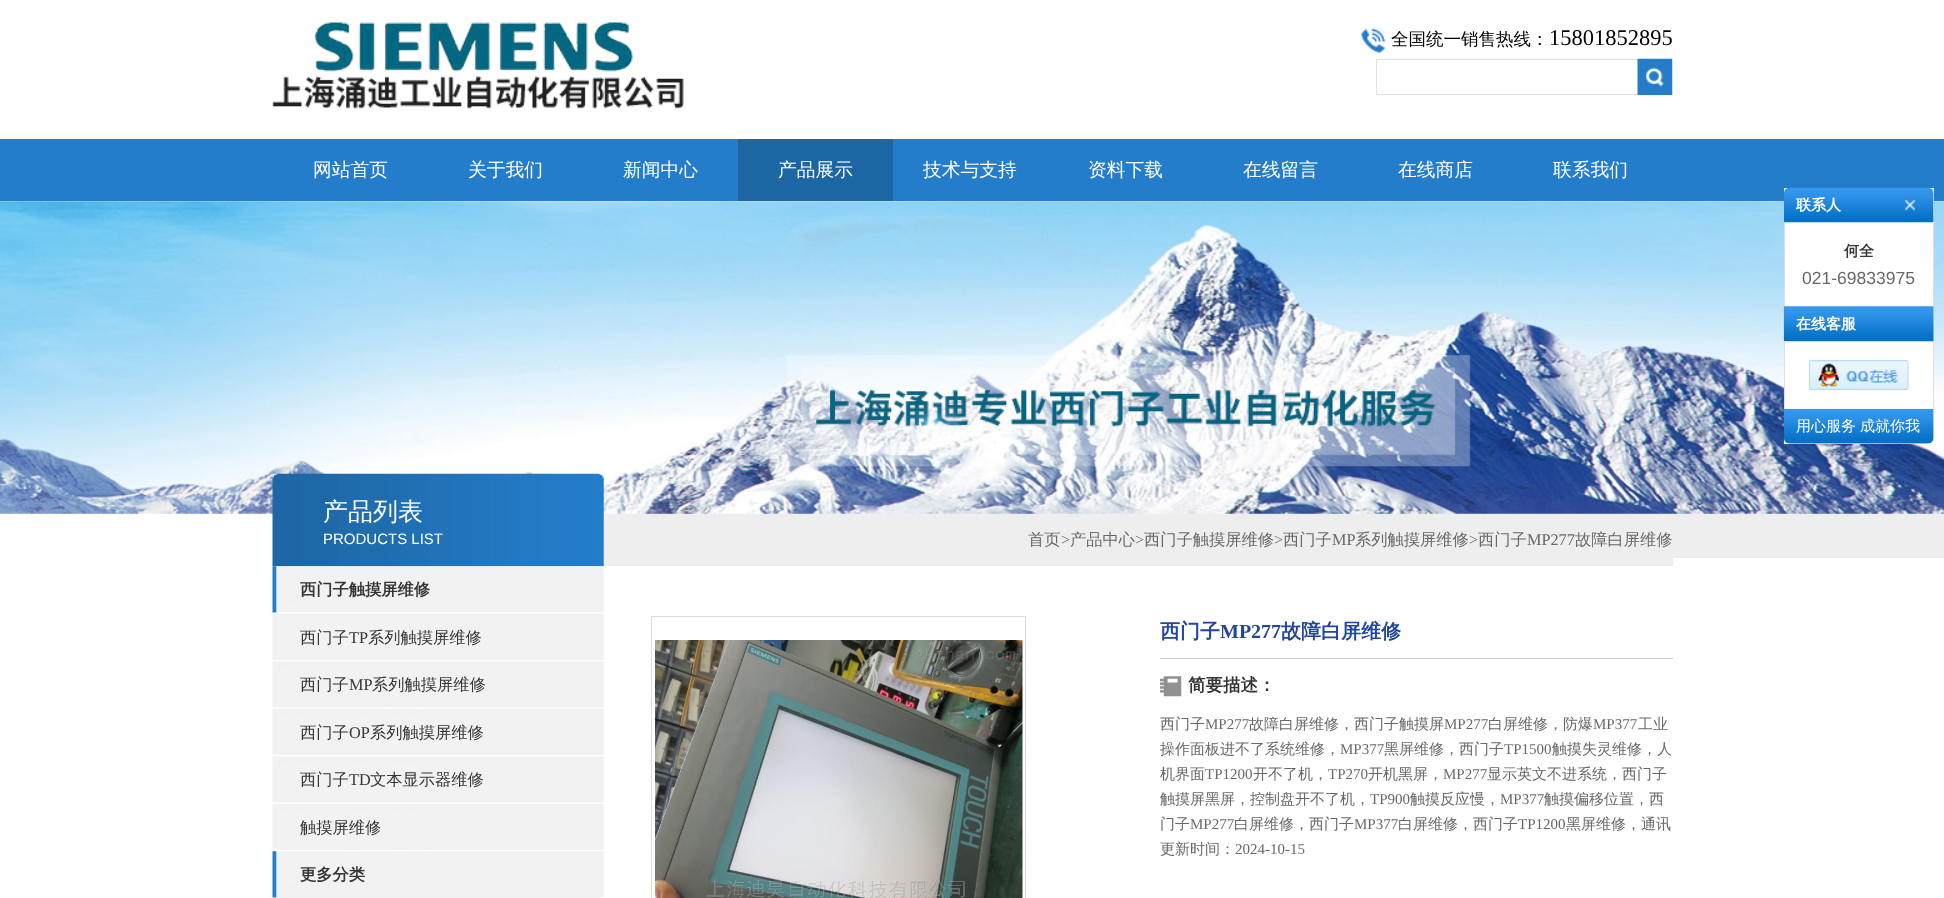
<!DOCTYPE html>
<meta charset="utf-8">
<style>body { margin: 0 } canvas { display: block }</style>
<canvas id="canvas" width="1944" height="898"></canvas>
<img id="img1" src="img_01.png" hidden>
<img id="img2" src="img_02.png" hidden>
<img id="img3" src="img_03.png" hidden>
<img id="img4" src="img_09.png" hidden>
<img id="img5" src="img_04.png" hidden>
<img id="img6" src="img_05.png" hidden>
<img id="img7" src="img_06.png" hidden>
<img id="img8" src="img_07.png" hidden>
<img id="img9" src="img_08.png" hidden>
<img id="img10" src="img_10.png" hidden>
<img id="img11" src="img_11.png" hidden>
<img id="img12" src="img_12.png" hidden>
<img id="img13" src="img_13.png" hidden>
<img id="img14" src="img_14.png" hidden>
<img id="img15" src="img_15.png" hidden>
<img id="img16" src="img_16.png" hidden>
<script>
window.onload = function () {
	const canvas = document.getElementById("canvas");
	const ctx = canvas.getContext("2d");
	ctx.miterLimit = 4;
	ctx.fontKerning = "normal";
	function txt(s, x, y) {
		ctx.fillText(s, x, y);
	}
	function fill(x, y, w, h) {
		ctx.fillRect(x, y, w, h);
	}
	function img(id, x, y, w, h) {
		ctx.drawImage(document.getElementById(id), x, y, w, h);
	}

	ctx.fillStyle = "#FFFFFF";
	fill(0, 0, 1944, 898);
	ctx.fillStyle = "#EEEEEE";
	fill(603, 513, 1341, 45);
	img("img1", 272, 22, 412, 87);
	img("img2", 1360, 28, 27, 26);
	ctx.fillStyle = "#E1E1E1";
	fill(1376, 59, 262, 1);
	fill(1376, 94, 262, 1);
	fill(1376, 59, 1, 36);
	img("img3", 1637, 58, 36, 37);
	ctx.fillStyle = "#247DCA";
	fill(0, 139, 1944, 62);
	ctx.fillStyle = "#1D66A4";
	fill(738, 139, 155, 62);
	img("img4", 0, 201, 1944, 313);
	ctx.fillStyle = "#FFFFFF";
	fill(1784, 188, 150, 256);
	img("img5", 1784, 187, 150, 36);
	img("img6", 1904, 199, 12, 12);
	ctx.fillStyle = "#DFDFDF";
	fill(1933, 223, 1, 83);
	fill(1784, 223, 1, 83);
	img("img7", 1783, 306, 151, 36);
	fill(1933, 341, 1, 68);
	fill(1784, 341, 1, 68);
	img("img8", 1808, 360, 101, 30);
	img("img9", 1784, 408, 150, 36);
	img("img10", 272, 473, 332, 94);
	img("img11", 272, 566, 332, 47);
	img("img12", 272, 613, 332, 47);
	img("img13", 272, 661, 332, 47);
	img("img12", 272, 708, 332, 47);
	img("img13", 272, 756, 332, 47);
	img("img12", 272, 803, 332, 47);
	img("img14", 272, 851, 332, 47);
	ctx.fillStyle = "#EEEEEE";
	fill(604, 558, 1069, 8);
	ctx.strokeStyle = "#DDDDDD";
	ctx.strokeRect(651.5, 616.5, 374, 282);
	img("img15", 655, 640, 368, 258);
	ctx.fillStyle = "#CCCCCC";
	fill(1160, 658, 513, 1);
	img("img16", 1160, 676, 22, 21);
	ctx.font = "500 17.5px WenQuanYi Zen Hei";
	ctx.fillStyle = "#000000";
	txt("全国统一销售热线：", 1391, 45);
	ctx.font = "22.5px Liberation Serif";
	txt("15801852895", 1549, 45);
	ctx.font = "500 18.75px WenQuanYi Zen Hei";
	ctx.fillStyle = "#FFFFFF";
	txt("网站首页", 313, 176);
	txt("关于我们", 468, 176);
	txt("新闻中心", 623, 176);
	txt("产品展示", 778, 176);
	txt("技术与支持", 923, 176);
	txt("资料下载", 1088, 176);
	txt("在线留言", 1243, 176);
	txt("在线商店", 1398, 176);
	txt("联系我们", 1553, 176);
	ctx.font = "bold 15px WenQuanYi Zen Hei";
	txt("联系人", 1796, 210);
	ctx.fillStyle = "#353535";
	txt("何全", 1844, 256);
	ctx.font = "17.5px Liberation Sans";
	ctx.fillStyle = "#686868";
	txt("021-69833975", 1802, 284);
	ctx.font = "bold 15px WenQuanYi Zen Hei";
	ctx.fillStyle = "#FFFFFF";
	txt("在线客服", 1796, 329);
	ctx.font = "500 15px WenQuanYi Zen Hei";
	txt("用心服务", 1796, 431);
	txt("成就你我", 1860, 431);
	ctx.font = "500 25px WenQuanYi Zen Hei";
	txt("产品列表", 323, 520);
	ctx.font = "15px Liberation Sans";
	txt("PRODUCTS LIST", 323, 544);
	ctx.font = "bold 16.25px WenQuanYi Zen Hei";
	ctx.fillStyle = "#353535";
	txt("西门子触摸屏维修", 300, 595);
	ctx.font = "500 16.25px WenQuanYi Zen Hei";
	txt("西门子", 300, 643);
	ctx.font = "16.25px Liberation Serif";
	txt("TP", 349, 643);
	ctx.font = "500 16.25px WenQuanYi Zen Hei";
	txt("系列触摸屏维修", 368, 643);
	txt("西门子", 300, 690);
	ctx.font = "16.25px Liberation Serif";
	txt("MP", 349, 690);
	ctx.font = "500 16.25px WenQuanYi Zen Hei";
	txt("系列触摸屏维修", 372, 690);
	txt("西门子", 300, 738);
	ctx.font = "16.25px Liberation Serif";
	txt("OP", 349, 738);
	ctx.font = "500 16.25px WenQuanYi Zen Hei";
	txt("系列触摸屏维修", 370, 738);
	txt("西门子", 300, 785);
	ctx.font = "16.25px Liberation Serif";
	txt("TD", 349, 785);
	ctx.font = "500 16.25px WenQuanYi Zen Hei";
	txt("文本显示器维修", 370, 785);
	txt("触摸屏维修", 300, 833);
	ctx.font = "bold 16.25px WenQuanYi Zen Hei";
	txt("更多分类", 300, 880);
	ctx.font = "500 16.25px WenQuanYi Zen Hei";
	ctx.fillStyle = "#686868";
	txt("首页", 1028, 545);
	ctx.font = "16.25px Liberation Serif";
	txt(">", 1061, 545);
	ctx.font = "500 16.25px WenQuanYi Zen Hei";
	txt("产品中心", 1070, 545);
	ctx.font = "16.25px Liberation Serif";
	txt(">", 1135, 545);
	ctx.font = "500 16.25px WenQuanYi Zen Hei";
	txt("西门子触摸屏维修", 1144, 545);
	ctx.font = "16.25px Liberation Serif";
	txt(">", 1274, 545);
	ctx.font = "500 16.25px WenQuanYi Zen Hei";
	txt("西门子", 1283, 545);
	ctx.font = "16.25px Liberation Serif";
	txt("MP", 1332, 545);
	ctx.font = "500 16.25px WenQuanYi Zen Hei";
	txt("系列触摸屏维修", 1355, 545);
	ctx.font = "16.25px Liberation Serif";
	txt(">", 1469, 545);
	ctx.font = "500 16.25px WenQuanYi Zen Hei";
	txt("西门子", 1478, 545);
	ctx.font = "16.25px Liberation Serif";
	txt("MP277", 1527, 545);
	ctx.font = "500 16.25px WenQuanYi Zen Hei";
	txt("故障白屏维修", 1575, 545);
	ctx.font = "bold 20px WenQuanYi Zen Hei";
	ctx.fillStyle = "#22469A";
	txt("西门子", 1160, 638);
	ctx.font = "bold 20px Liberation Serif";
	txt("MP277", 1220, 638);
	ctx.font = "bold 20px WenQuanYi Zen Hei";
	txt("故障白屏维修", 1281, 638);
	ctx.font = "bold 17.5px WenQuanYi Zen Hei";
	ctx.fillStyle = "#353535";
	txt("简要描述：", 1188, 691);
	ctx.font = "500 15px WenQuanYi Zen Hei";
	ctx.fillStyle = "#686868";
	txt("西门子", 1160, 729);
	ctx.font = "15px Liberation Serif";
	txt("MP277", 1205, 729);
	ctx.font = "500 15px WenQuanYi Zen Hei";
	txt("故障白屏维修，西门子触摸屏", 1249, 729);
	ctx.font = "15px Liberation Serif";
	txt("MP277", 1444, 729);
	ctx.font = "500 15px WenQuanYi Zen Hei";
	txt("白屏维修，防爆", 1488, 729);
	ctx.font = "15px Liberation Serif";
	txt("MP377", 1593, 729);
	ctx.font = "500 15px WenQuanYi Zen Hei";
	txt("工业", 1638, 729);
	txt("操作面板进不了系统维修，", 1160, 754);
	ctx.font = "15px Liberation Serif";
	txt("MP377", 1340, 754);
	ctx.font = "500 15px WenQuanYi Zen Hei";
	txt("黑屏维修，西门子", 1384, 754);
	ctx.font = "15px Liberation Serif";
	txt("TP1500", 1504, 754);
	ctx.font = "500 15px WenQuanYi Zen Hei";
	txt("触摸失灵维修，人", 1552, 754);
	txt("机界面", 1160, 779);
	ctx.font = "15px Liberation Serif";
	txt("TP1200", 1205, 779);
	ctx.font = "500 15px WenQuanYi Zen Hei";
	txt("开不了机，", 1253, 779);
	ctx.font = "15px Liberation Serif";
	txt("TP270", 1328, 779);
	ctx.font = "500 15px WenQuanYi Zen Hei";
	txt("开机黑屏，", 1368, 779);
	ctx.font = "15px Liberation Serif";
	txt("MP277", 1443, 779);
	ctx.font = "500 15px WenQuanYi Zen Hei";
	txt("显示英文不进系统，西门子", 1487, 779);
	txt("触摸屏黑屏，控制盘开不了机，", 1160, 804);
	ctx.font = "15px Liberation Serif";
	txt("TP900", 1370, 804);
	ctx.font = "500 15px WenQuanYi Zen Hei";
	txt("触摸反应慢，", 1410, 804);
	ctx.font = "15px Liberation Serif";
	txt("MP377", 1500, 804);
	ctx.font = "500 15px WenQuanYi Zen Hei";
	txt("触摸偏移位置，西", 1544, 804);
	txt("门子", 1160, 829);
	ctx.font = "15px Liberation Serif";
	txt("MP277", 1190, 829);
	ctx.font = "500 15px WenQuanYi Zen Hei";
	txt("白屏维修，西门子", 1234, 829);
	ctx.font = "15px Liberation Serif";
	txt("MP377", 1354, 829);
	ctx.font = "500 15px WenQuanYi Zen Hei";
	txt("白屏维修，西门子", 1398, 829);
	ctx.font = "15px Liberation Serif";
	txt("TP1200", 1518, 829);
	ctx.font = "500 15px WenQuanYi Zen Hei";
	txt("黑屏维修，通讯", 1566, 829);
	txt("更新时间：", 1160, 854);
	ctx.font = "15px Liberation Serif";
	txt("2024-10-15", 1235, 854);
};
</script>
